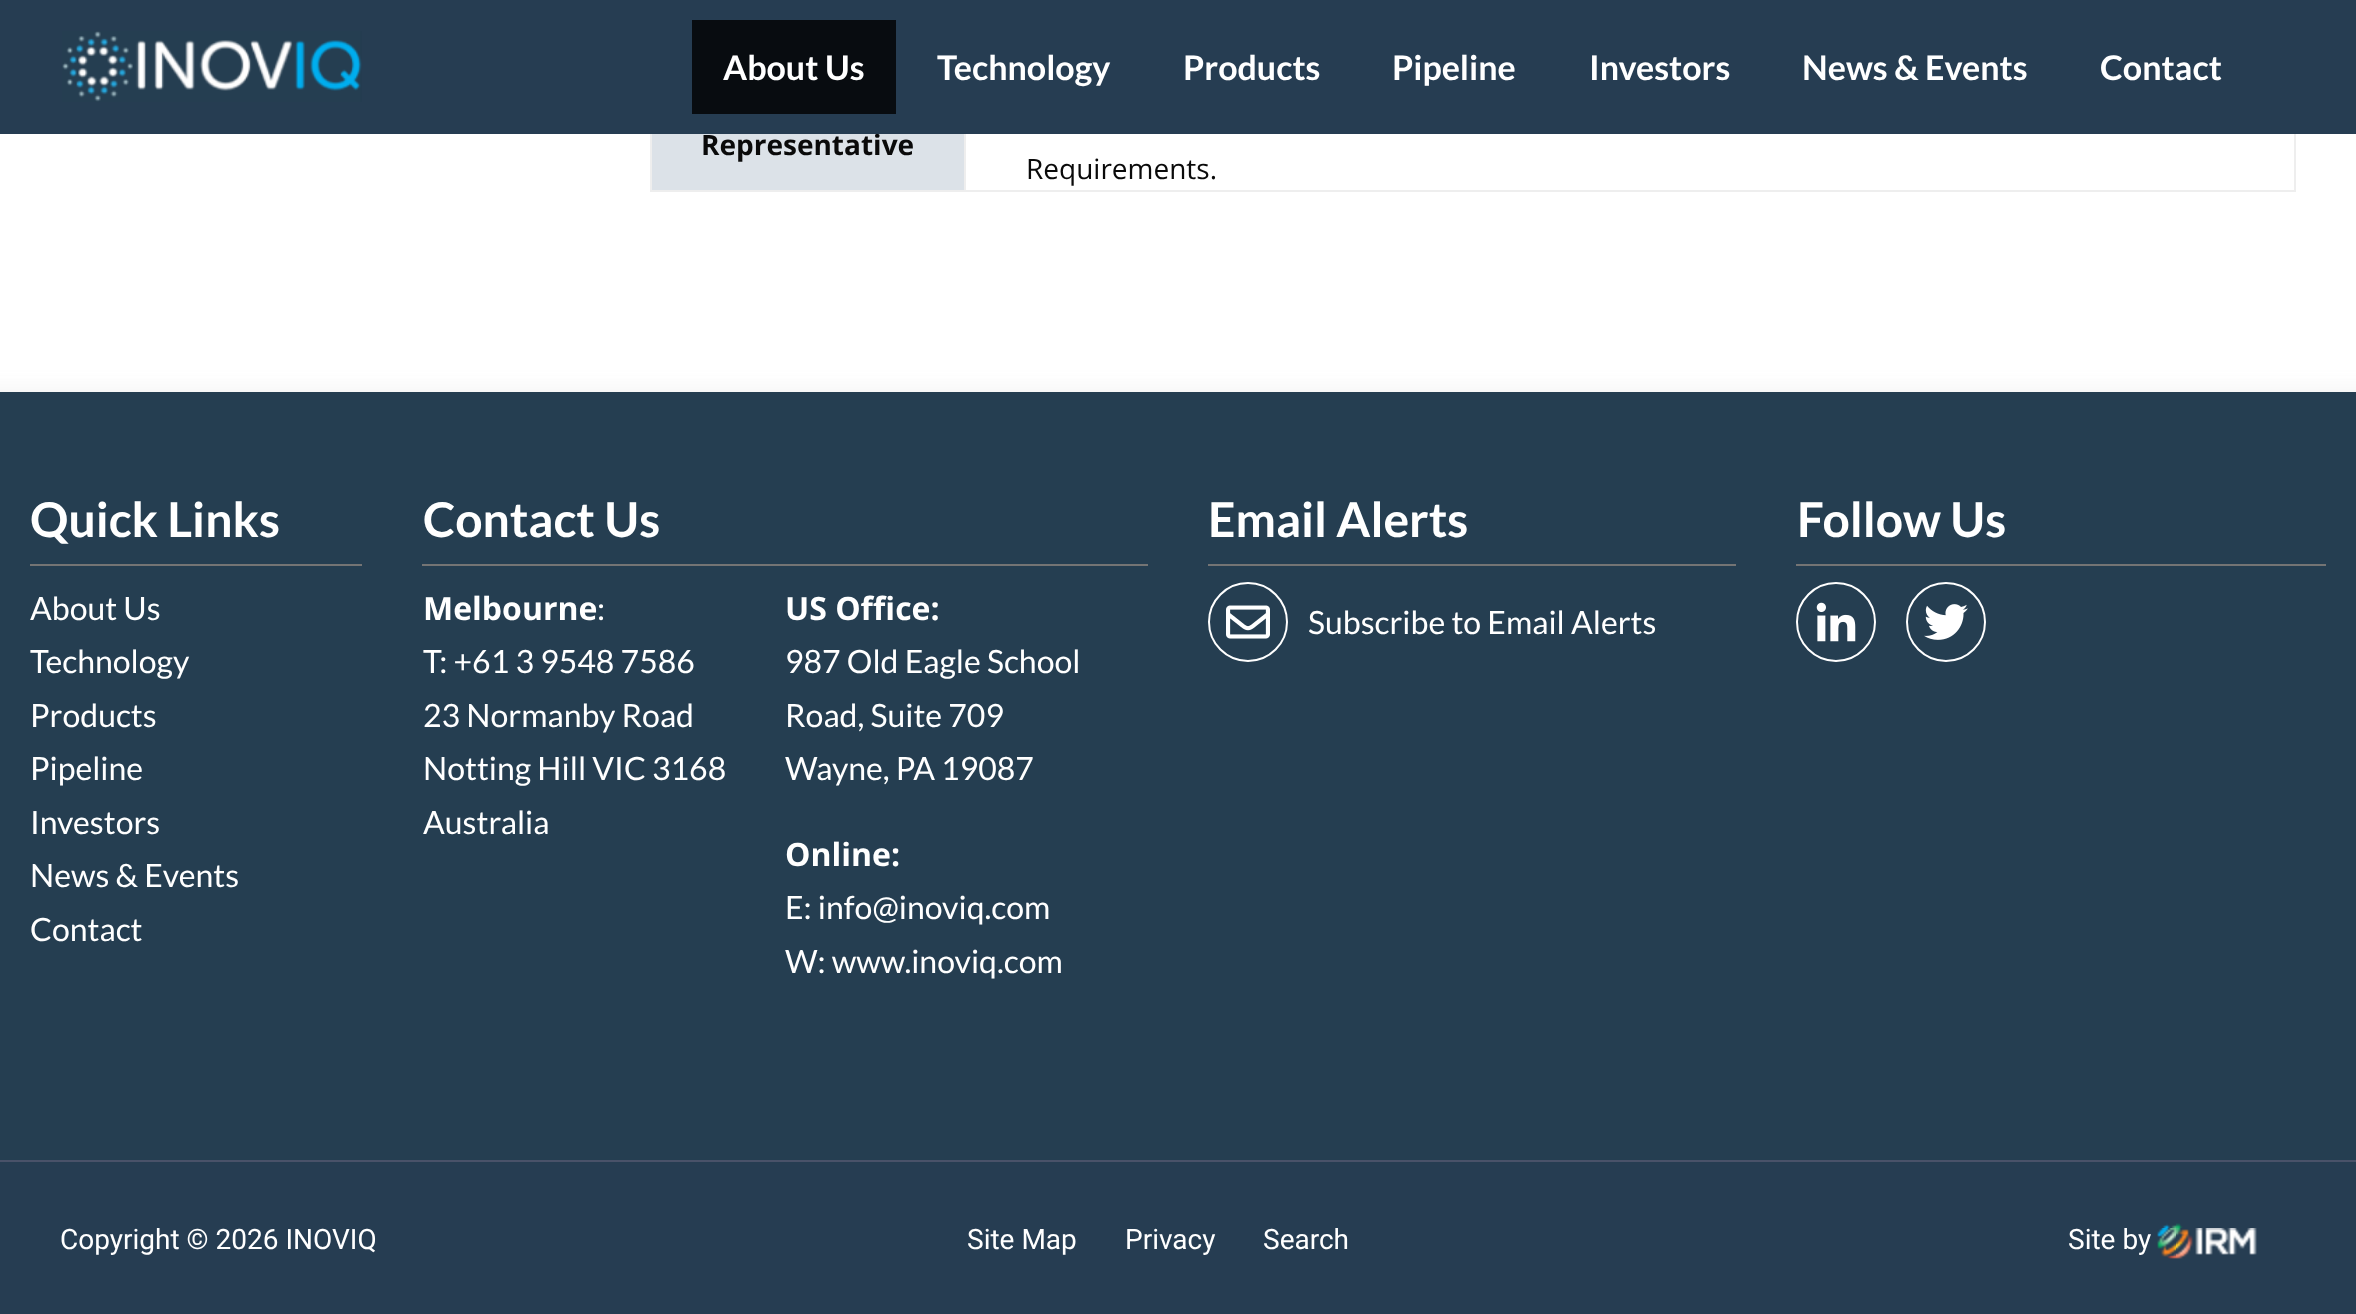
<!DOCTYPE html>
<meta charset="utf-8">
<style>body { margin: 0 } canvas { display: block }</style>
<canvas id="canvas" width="2356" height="1314"></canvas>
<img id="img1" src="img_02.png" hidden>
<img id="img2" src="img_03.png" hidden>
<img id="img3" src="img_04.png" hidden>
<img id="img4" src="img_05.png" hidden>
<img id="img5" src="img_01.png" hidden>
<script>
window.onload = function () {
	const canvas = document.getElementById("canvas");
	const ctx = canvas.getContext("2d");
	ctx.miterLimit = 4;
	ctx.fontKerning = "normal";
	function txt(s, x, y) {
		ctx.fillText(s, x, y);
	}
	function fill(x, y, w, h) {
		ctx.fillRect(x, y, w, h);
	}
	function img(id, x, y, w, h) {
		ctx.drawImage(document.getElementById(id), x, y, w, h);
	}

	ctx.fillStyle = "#FFFFFF";
	fill(0, 0, 2356, 1314);
	ctx.fillStyle = "#DCE2E8";
	fill(652, 134, 312, 56);
	ctx.fillStyle = "#EEEEEE";
	fill(2294, 134, 2, 58);
	fill(964, 190, 1332, 2);
	fill(964, 134, 2, 58);
	fill(650, 190, 316, 2);
	fill(650, 134, 2, 58);
	ctx.fillStyle = "#F1F1F1";
	ctx.filter = "blur(13px)";
	ctx.beginPath();
	ctx.rect(-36, 392, 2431, 860);
	ctx.fill();
	ctx.filter = "none";
	ctx.fillStyle = "#253E51";
	fill(0, 392, 2356, 768);
	ctx.fillStyle = "#747474";
	fill(30, 564, 332, 2);
	fill(422, 564, 726, 2);
	fill(1208, 564, 528, 2);
	ctx.beginPath();
	ctx.arc(1248, 622, 39, 0, Math.PI * 2);
	ctx.strokeStyle = "#FFFFFF";
	ctx.lineWidth = 2;
	ctx.stroke();
	img("img1", 1226, 605, 44, 34);
	fill(1796, 564, 530, 2);
	ctx.beginPath();
	ctx.arc(1836, 622, 39, 0, Math.PI * 2);
	ctx.stroke();
	img("img2", 1816, 602, 40, 40);
	ctx.beginPath();
	ctx.arc(1946, 622, 39, 0, Math.PI * 2);
	ctx.stroke();
	img("img3", 1924, 604, 44, 36);
	ctx.fillStyle = "#263D52";
	fill(0, 1162, 2356, 152);
	ctx.fillStyle = "#495269";
	fill(0, 1160, 2356, 2);
	img("img4", 2157, 1223, 100, 36);
	ctx.font = "bold 28px Open Sans";
	ctx.fillStyle = "#0A0A0A";
	txt("Representative", 701, 155);
	ctx.fillStyle = "#263D52";
	fill(0, 0, 2356, 134);
	ctx.font = "bold 34px Lato";
	ctx.fillStyle = "#FFFFFF";
	txt("Contact", 2100, 80);
	txt("News & Events", 1802, 80);
	txt("Investors", 1589, 80);
	txt("Pipeline", 1392, 80);
	txt("Products", 1183, 80);
	txt("Technology", 937, 80);
	ctx.fillStyle = "#080C10";
	fill(692, 20, 204, 94);
	ctx.fillStyle = "#FFFFFF";
	txt("About Us", 723, 80);
	img("img5", 62, 31, 300, 71);
	ctx.font = "28px Open Sans";
	ctx.fillStyle = "#0A0A0A";
	txt("Requirements.", 1026, 179);
	ctx.font = "bold 48px Lato";
	ctx.fillStyle = "#FFFFFF";
	txt("Quick Links", 30, 537);
	ctx.font = "32px Lato";
	txt("About Us", 30, 620);
	txt("Technology", 30, 673);
	txt("Products", 30, 727);
	txt("Pipeline", 30, 780);
	txt("Investors", 30, 834);
	txt("News & Events", 30, 887);
	txt("Contact", 30, 941);
	ctx.font = "bold 48px Lato";
	txt("Contact Us", 423, 537);
	ctx.font = "bold 32px Open Sans";
	txt("Melbourne", 423, 620);
	ctx.font = "32px Lato";
	txt(":", 597, 620);
	txt("T: +61 3 9548 7586", 423, 673);
	txt("23 Normanby Road", 423, 727);
	txt("Notting Hill VIC 3168", 423, 780);
	txt("Australia", 423, 834);
	ctx.font = "bold 32px Open Sans";
	txt("US Office:", 785, 620);
	ctx.font = "32px Lato";
	txt("987 Old Eagle School", 785, 673);
	txt("Road, Suite 709", 785, 727);
	txt("Wayne, PA 19087", 785, 780);
	ctx.font = "bold 32px Open Sans";
	txt("Online:", 785, 866);
	ctx.font = "32px Lato";
	txt("E: info@inoviq.com", 785, 919);
	txt("W: www.inoviq.com", 785, 973);
	ctx.font = "bold 48px Lato";
	txt("Email Alerts", 1208, 537);
	ctx.font = "32px Lato";
	txt("Subscribe to Email Alerts", 1308, 634);
	ctx.font = "bold 48px Lato";
	txt("Follow Us", 1797, 537);
	ctx.font = "28px Roboto";
	txt("Copyright © 2026 INOVIQ", 60, 1249);
	txt("Site Map", 967, 1249);
	txt("Privacy", 1125, 1249);
	txt("Search", 1263, 1249);
	txt("Site by", 2068, 1249);
};
</script>
